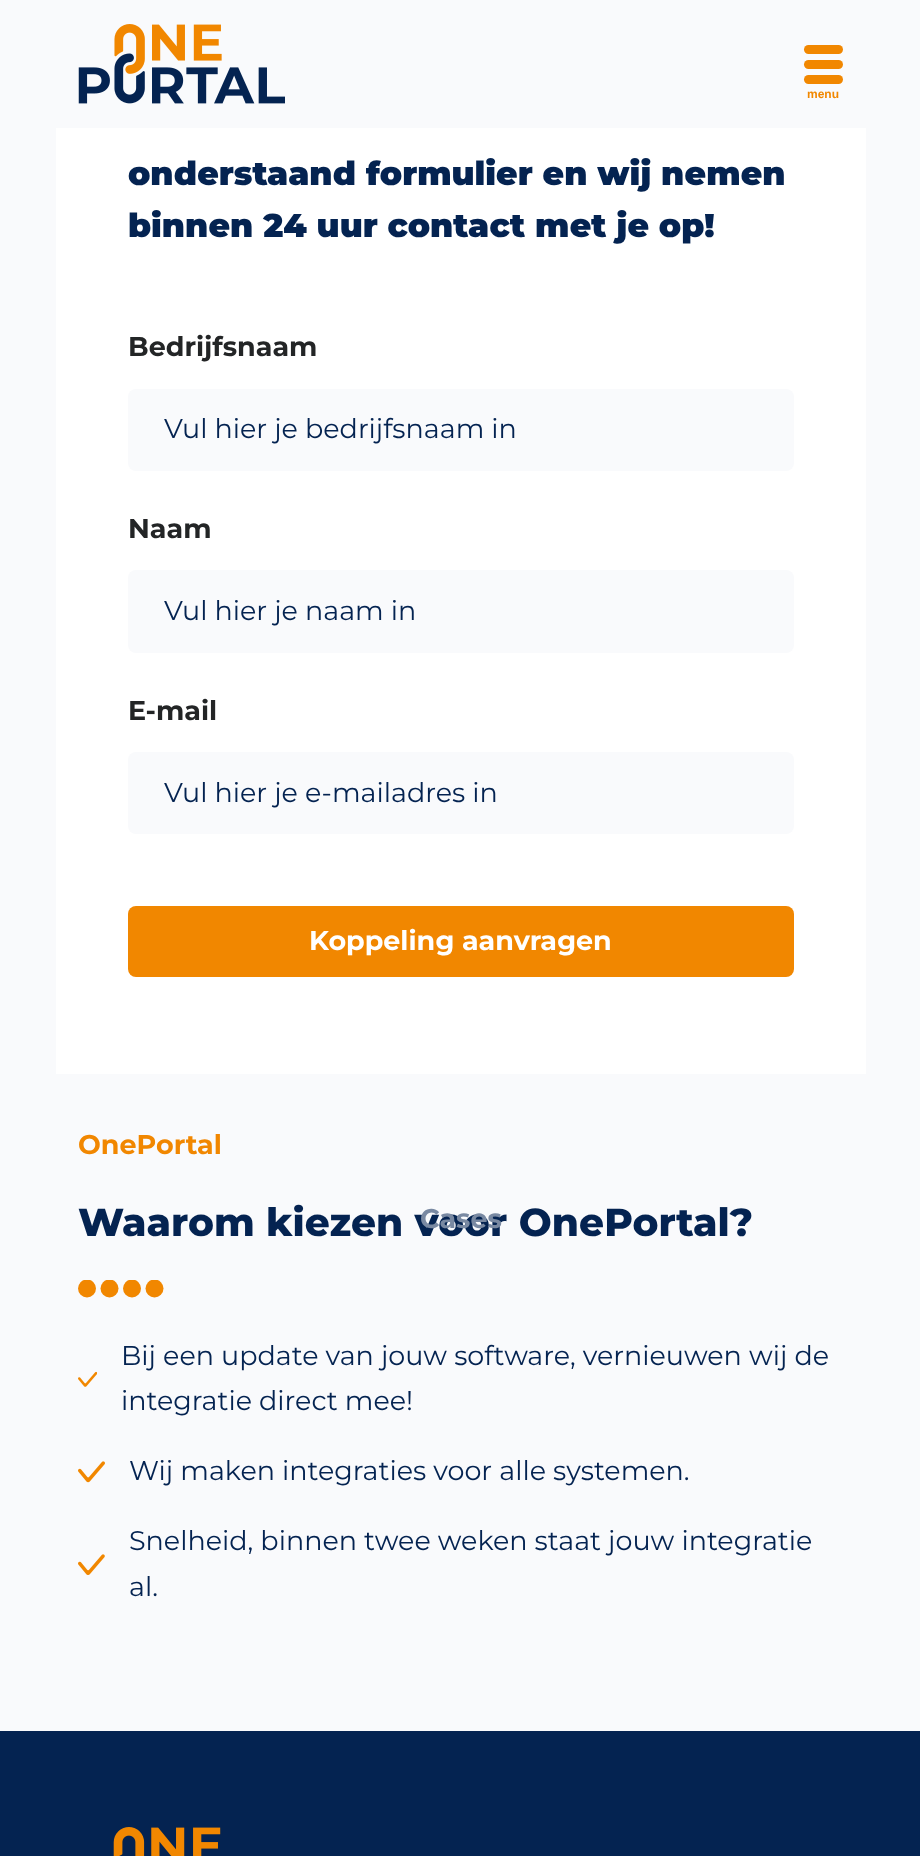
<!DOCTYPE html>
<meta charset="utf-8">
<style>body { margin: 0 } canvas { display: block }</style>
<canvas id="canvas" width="920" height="1856"></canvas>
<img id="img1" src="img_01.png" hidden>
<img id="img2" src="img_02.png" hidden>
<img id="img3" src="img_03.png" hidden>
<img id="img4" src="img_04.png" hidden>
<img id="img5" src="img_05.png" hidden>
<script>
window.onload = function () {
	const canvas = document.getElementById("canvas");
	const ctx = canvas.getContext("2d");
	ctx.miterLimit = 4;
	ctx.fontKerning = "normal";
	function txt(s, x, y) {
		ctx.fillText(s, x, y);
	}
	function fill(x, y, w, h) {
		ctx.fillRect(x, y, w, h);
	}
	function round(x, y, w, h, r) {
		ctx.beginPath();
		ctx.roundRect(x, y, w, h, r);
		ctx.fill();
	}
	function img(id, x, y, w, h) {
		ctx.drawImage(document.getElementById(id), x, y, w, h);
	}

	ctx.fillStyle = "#F9FAFC";
	fill(0, 0, 920, 1856);
	img("img1", 78, 24, 207, 80);
	ctx.fillStyle = "#F18700";
	round(804, 75, 39, 9, 4.5);
	round(804, 45, 39, 9, 4.5);
	round(804, 60, 39, 9, 4.5);
	ctx.fillStyle = "#FFFFFF";
	fill(56, 128, 810, 946);
	ctx.fillStyle = "#F9FAFC";
	round(128, 389, 666, 82, 8);
	round(128, 570, 666, 83, 8);
	round(128, 752, 666, 82, 8);
	ctx.fillStyle = "#F18700";
	round(128, 906, 666, 71, 8);
	ctx.save();
	ctx.beginPath();
	ctx.rect(78, 1280, 86, 18);
	ctx.clip();
	ctx.beginPath();
	ctx.arc(87, 1288.5, 9, 0, Math.PI * 2);
	ctx.fill();
	ctx.beginPath();
	ctx.arc(154.5, 1288.5, 9, 0, Math.PI * 2);
	ctx.fill();
	ctx.beginPath();
	ctx.arc(132, 1288.5, 9, 0, Math.PI * 2);
	ctx.fill();
	ctx.beginPath();
	ctx.arc(109.5, 1288.5, 9, 0, Math.PI * 2);
	ctx.fill();
	ctx.restore();
	img("img2", 78, 1371, 19, 16);
	img("img3", 78, 1461, 27, 22);
	img("img4", 78, 1554, 27, 21);
	ctx.fillStyle = "#042351";
	fill(0, 1731, 920, 125);
	img("img5", 113, 1827, 108, 29);
	ctx.font = "bold 12px Liberation Sans";
	ctx.fillStyle = "#F18700";
	txt("menu", 807, 98);
	ctx.font = "900 33px Montserrat";
	ctx.fillStyle = "#042351";
	txt("onderstaand formulier en wij nemen", 128, 185);
	txt("binnen 24 uur contact met je op!", 128, 237);
	ctx.font = "bold 27px Montserrat";
	ctx.fillStyle = "#232526";
	txt("Bedrijfsnaam", 128, 356);
	ctx.font = "27px Montserrat";
	ctx.fillStyle = "#042351";
	txt("Vul hier je bedrijfsnaam in", 164, 438);
	ctx.font = "bold 27px Montserrat";
	ctx.fillStyle = "#232526";
	txt("Naam", 128, 538);
	ctx.font = "27px Montserrat";
	ctx.fillStyle = "#042351";
	txt("Vul hier je naam in", 164, 620);
	ctx.font = "bold 27px Montserrat";
	ctx.fillStyle = "#232526";
	txt("E-mail", 128, 720);
	ctx.font = "27px Montserrat";
	ctx.fillStyle = "#042351";
	txt("Vul hier je e-mailadres in", 164, 802);
	ctx.font = "bold 27px Montserrat";
	ctx.fillStyle = "#FFFFFF";
	txt("Koppeling aanvragen", 309, 950);
	ctx.fillStyle = "#F18700";
	txt("OnePortal", 78, 1154);
	ctx.font = "800 39px Montserrat";
	ctx.fillStyle = "#042351";
	txt("Waarom kiezen voor OnePortal?", 78, 1236);
	ctx.font = "bold 27px Montserrat";
	ctx.fillStyle = "#7989A2";
	txt("Cases", 420, 1228);
	ctx.font = "27px Montserrat";
	ctx.fillStyle = "#042351";
	txt("Bij een update van jouw software, vernieuwen wij de", 121, 1365);
	txt("integratie direct mee!", 121, 1410);
	txt("Wij maken integraties voor alle systemen.", 129, 1480);
	txt("Snelheid, binnen twee weken staat jouw integratie", 129, 1550);
	txt("al.", 129, 1596);
};
</script>
